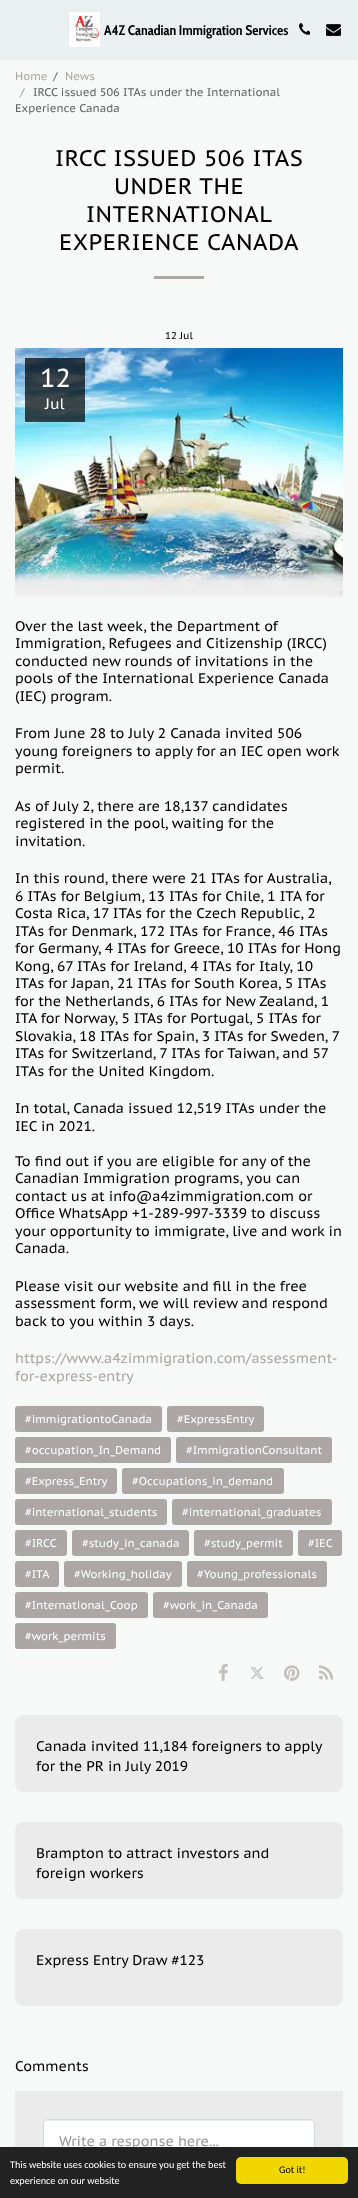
<!DOCTYPE html>
<meta charset="utf-8">
<style>body { margin: 0 } canvas { display: block }</style>
<canvas id="canvas" width="358" height="2198"></canvas>
<img id="img1" src="img_01.png" hidden>
<img id="img2" src="img_02.png" hidden>
<img id="img3" src="img_03.png" hidden>
<img id="img4" src="img_04.png" hidden>
<img id="img5" src="img_05.png" hidden>
<img id="img6" src="img_06.png" hidden>
<img id="img7" src="img_07.png" hidden>
<img id="img8" src="img_08.png" hidden>
<script>
window.onload = function () {
	const canvas = document.getElementById("canvas");
	const ctx = canvas.getContext("2d");
	ctx.miterLimit = 4;
	ctx.fontKerning = "normal";
	function txt(s, x, y) {
		ctx.fillText(s, x, y);
	}
	function fill(x, y, w, h) {
		ctx.fillRect(x, y, w, h);
	}
	function round(x, y, w, h, r) {
		ctx.beginPath();
		ctx.roundRect(x, y, w, h, r);
		ctx.fill();
	}
	function img(id, x, y, w, h) {
		ctx.drawImage(document.getElementById(id), x, y, w, h);
	}

	ctx.fillStyle = "#F7F9F8";
	fill(0, 0, 358, 2198);
	ctx.fillStyle = "#EAEFF2";
	fill(0, 0, 358, 60);
	img("img1", 69, 12, 31, 35);
	img("img2", 299, 23, 11, 12);
	img("img3", 326, 24, 15, 12);
	ctx.fillStyle = "#ACA6A4";
	fill(154, 276, 50, 3);
	img("img4", 15, 348, 328, 250);
	ctx.fillStyle = "rgba(0, 0, 0, 0.7)";
	fill(25, 358, 60, 64);
	ctx.fillStyle = "#ACA6A4";
	round(15, 1406, 147, 26, 3);
	round(167, 1406, 97, 26, 3);
	round(15, 1437, 156, 26, 3);
	round(176, 1437, 156, 26, 3);
	round(15, 1468, 102, 26, 3);
	round(122, 1468, 162, 26, 3);
	round(15, 1499, 152, 26, 3);
	round(172, 1499, 160, 26, 3);
	round(15, 1530, 52, 26, 3);
	round(72, 1530, 117, 26, 3);
	round(194, 1530, 99, 26, 3);
	round(298, 1530, 44, 26, 3);
	round(15, 1561, 44, 26, 3);
	round(64, 1561, 118, 26, 3);
	round(187, 1561, 140, 26, 3);
	round(15, 1592, 133, 26, 3);
	round(153, 1592, 115, 26, 3);
	round(15, 1623, 101, 26, 3);
	img("img5", 219, 1664, 9, 17);
	img("img6", 250, 1667, 14, 12);
	img("img7", 284, 1665, 16, 16);
	img("img8", 319, 1665, 14, 15);
	ctx.fillStyle = "#EBEBEB";
	ctx.beginPath();
	ctx.roundRect(15.5, 1715.5, 327, 76, 7.5);
	ctx.fill();
	ctx.strokeStyle = "#EBEBEB";
	ctx.stroke();
	ctx.beginPath();
	ctx.roundRect(15.5, 1822.5, 327, 76, 7.5);
	ctx.fill();
	ctx.stroke();
	ctx.beginPath();
	ctx.roundRect(15.5, 1929.5, 327, 76, 7.5);
	ctx.fill();
	ctx.stroke();
	fill(15, 2091, 328, 56);
	ctx.fillStyle = "#FFFFFF";
	round(43, 2119, 272, 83, 4);
	ctx.fillStyle = "#ECECEC";
	ctx.beginPath();
	ctx.moveTo(47, 2121);
	ctx.lineTo(311, 2121);
	ctx.bezierCurveTo(313, 2121, 314, 2122, 314, 2124);
	ctx.lineTo(314, 2123);
	ctx.bezierCurveTo(314, 2121, 313, 2120, 311, 2120);
	ctx.lineTo(47, 2120);
	ctx.bezierCurveTo(45, 2120, 44, 2121, 44, 2123);
	ctx.lineTo(44, 2124);
	ctx.bezierCurveTo(44, 2122, 45, 2121, 47, 2121);
	ctx.closePath();
	ctx.fill();
	ctx.beginPath();
	ctx.roundRect(43.5, 2119.5, 271, 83, 3.5);
	ctx.strokeStyle = "#D4D7E5";
	ctx.stroke();
	ctx.font = "bold 14px Cabin Condensed";
	ctx.fillStyle = "#000000";
	txt("A4Z Canadian Immigration Services", 104, 35);
	ctx.font = "11.2px PT Sans Caption";
	ctx.fillStyle = "#ACA6A4";
	txt("Home", 15, 80);
	ctx.fillStyle = "#636463";
	txt("/", 53, 80);
	ctx.fillStyle = "#ACA6A4";
	txt("News", 65, 80);
	ctx.fillStyle = "#9E9F9F";
	txt("/", 20, 96);
	ctx.fillStyle = "#636463";
	txt("IRCC issued 506 ITAs under the International", 33, 96);
	txt("Experience Canada", 15, 112);
	ctx.letterSpacing = "0.5px";
	ctx.font = "22.5px PT Sans Caption";
	ctx.fillStyle = "#000000";
	txt("IRCC ISSUED 506 ITAS", 55, 166);
	txt("UNDER THE", 114, 194);
	txt("INTERNATIONAL", 86, 222);
	txt("EXPERIENCE CANADA", 59, 250);
	ctx.letterSpacing = "0px";
	ctx.font = "10px PT Sans Caption";
	txt("12 Jul", 165, 339);
	ctx.font = "26px PT Sans Caption";
	ctx.fillStyle = "#FFFFFF";
	txt("12", 40, 387);
	ctx.font = "15px PT Sans Caption";
	txt("Jul", 45, 409);
	ctx.font = "14px PT Sans Caption";
	ctx.fillStyle = "#000000";
	txt("Over the last week, the Department of", 15, 631);
	txt("Immigration, Refugees and Citizenship (IRCC)", 15, 648);
	txt("conducted new rounds of invitations in the", 15, 666);
	txt("pools of the International Experience Canada", 15, 683);
	txt("(IEC) program.", 15, 701);
	txt("From June 28 to July 2 Canada invited 506", 15, 738);
	txt("young foreigners to apply for an IEC open work", 15, 756);
	txt("permit.", 15, 773);
	txt("As of July 2, there are 18,137 candidates", 15, 811);
	txt("registered in the pool, waiting for the", 15, 828);
	txt("invitation.", 15, 846);
	txt("In this round, there were 21 ITAs for Australia,", 15, 883);
	txt("6 ITAs for Belgium, 13 ITAs for Chile, 1 ITA for", 15, 901);
	txt("Costa Rica, 17 ITAs for the Czech Republic, 2", 15, 918);
	txt("ITAs for Denmark, 172 ITAs for France, 46 ITAs", 15, 936);
	txt("for Germany, 4 ITAs for Greece, 10 ITAs for Hong", 15, 953);
	txt("Kong, 67 ITAs for Ireland, 4 ITAs for Italy, 10", 15, 971);
	txt("ITAs for Japan, 21 ITAs for South Korea, 5 ITAs", 15, 988);
	txt("for the Netherlands, 6 ITAs for New Zealand, 1", 15, 1006);
	txt("ITA for Norway, 5 ITAs for Portugal, 5 ITAs for", 15, 1023);
	txt("Slovakia, 18 ITAs for Spain, 3 ITAs for Sweden, 7", 15, 1041);
	txt("ITAs for Switzerland, 7 ITAs for Taiwan, and 57", 15, 1058);
	txt("ITAs for the United Kingdom.", 15, 1076);
	txt("In total, Canada issued 12,519 ITAs under the", 15, 1113);
	txt("IEC in 2021.", 15, 1131);
	txt("To find out if you are eligible for any of the", 15, 1166);
	txt("Canadian Immigration programs, you can", 15, 1183);
	txt("contact us at info@a4zimmigration.com or", 15, 1201);
	txt("Office WhatsApp +1-289-997-3339 to discuss", 15, 1218);
	txt("your opportunity to immigrate, live and work in", 15, 1236);
	txt("Canada.", 15, 1253);
	txt("Please visit our website and fill in the free", 15, 1291);
	txt("assessment form, we will review and respond", 15, 1308);
	txt("back to you within 3 days.", 15, 1326);
	ctx.fillStyle = "#ACA6A4";
	txt("https://www.a4zimmigration.com/assessment-", 15, 1363);
	txt("for-express-entry", 15, 1381);
	ctx.font = "11.2px PT Sans Caption";
	ctx.fillStyle = "#FFFFFF";
	txt("#immigrationtoCanada", 25, 1423);
	txt("#ExpressEntry", 177, 1423);
	txt("#occupation_In_Demand", 25, 1454);
	txt("#ImmigrationConsultant", 186, 1454);
	txt("#Express_Entry", 25, 1485);
	txt("#Occupations_in_demand", 132, 1485);
	txt("#international_students", 25, 1516);
	txt("#international_graduates", 182, 1516);
	txt("#IRCC", 25, 1547);
	txt("#study_in_canada", 82, 1547);
	txt("#study_permit", 204, 1547);
	txt("#IEC", 308, 1547);
	txt("#ITA", 25, 1578);
	txt("#Working_holiday", 74, 1578);
	txt("#Young_professionals", 197, 1578);
	txt("#International_Coop", 25, 1609);
	txt("#work_in_Canada", 163, 1609);
	txt("#work_permits", 25, 1640);
	ctx.font = "14px PT Sans Caption";
	ctx.fillStyle = "#000000";
	txt("Canada invited 11,184 foreigners to apply", 36, 1751);
	txt("for the PR in July 2019", 36, 1771);
	txt("Brampton to attract investors and", 36, 1858);
	txt("foreign workers", 36, 1878);
	txt("Express Entry Draw #123", 36, 1965);
	txt("Comments", 15, 2071);
	ctx.fillStyle = "#999999";
	txt("Write a response here...", 59, 2146);
	ctx.fillStyle = "#222222";
	fill(0, 2147, 358, 51);
	ctx.font = "10.2px Carlito";
	ctx.fillStyle = "#FFFFFF";
	txt("This website uses cookies to ensure you get the best", 10, 2168);
	txt("experience on our website", 10, 2184);
	ctx.fillStyle = "#F1D600";
	round(236, 2157, 112, 27, 5);
	ctx.fillStyle = "#000000";
	txt("Got it!", 279, 2173);
};
</script>
